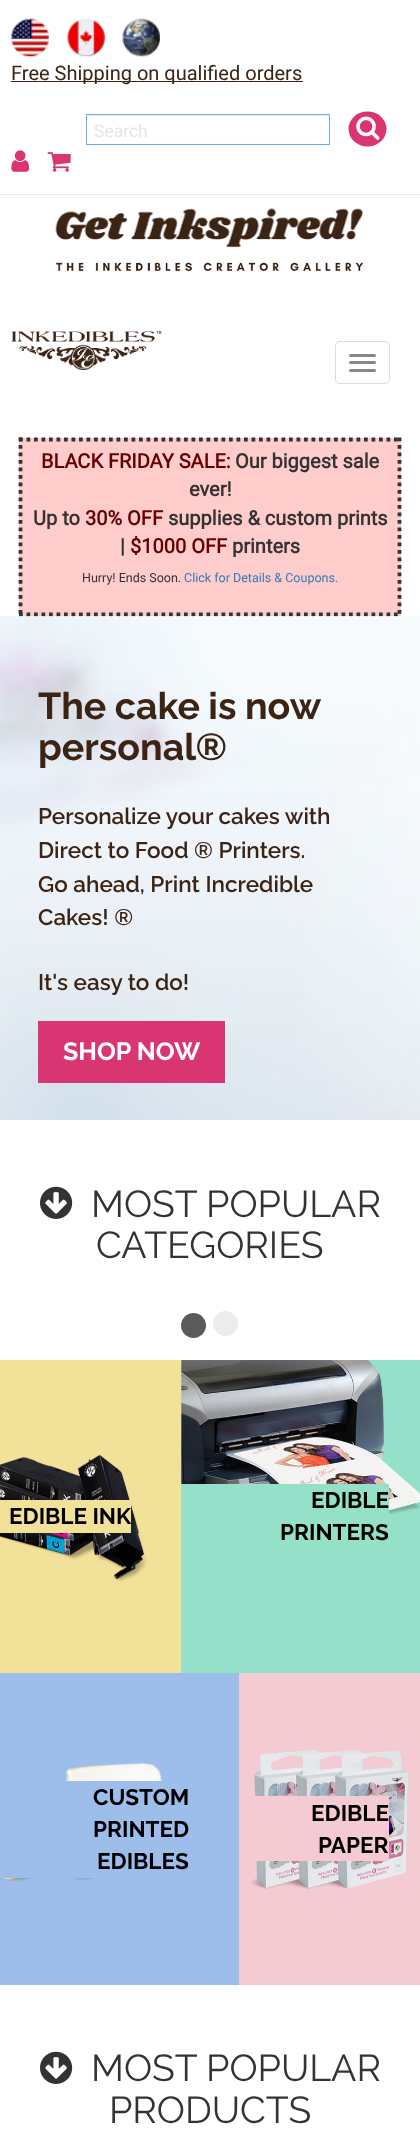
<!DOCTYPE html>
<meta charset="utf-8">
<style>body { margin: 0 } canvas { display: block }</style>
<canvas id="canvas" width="420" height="2137"></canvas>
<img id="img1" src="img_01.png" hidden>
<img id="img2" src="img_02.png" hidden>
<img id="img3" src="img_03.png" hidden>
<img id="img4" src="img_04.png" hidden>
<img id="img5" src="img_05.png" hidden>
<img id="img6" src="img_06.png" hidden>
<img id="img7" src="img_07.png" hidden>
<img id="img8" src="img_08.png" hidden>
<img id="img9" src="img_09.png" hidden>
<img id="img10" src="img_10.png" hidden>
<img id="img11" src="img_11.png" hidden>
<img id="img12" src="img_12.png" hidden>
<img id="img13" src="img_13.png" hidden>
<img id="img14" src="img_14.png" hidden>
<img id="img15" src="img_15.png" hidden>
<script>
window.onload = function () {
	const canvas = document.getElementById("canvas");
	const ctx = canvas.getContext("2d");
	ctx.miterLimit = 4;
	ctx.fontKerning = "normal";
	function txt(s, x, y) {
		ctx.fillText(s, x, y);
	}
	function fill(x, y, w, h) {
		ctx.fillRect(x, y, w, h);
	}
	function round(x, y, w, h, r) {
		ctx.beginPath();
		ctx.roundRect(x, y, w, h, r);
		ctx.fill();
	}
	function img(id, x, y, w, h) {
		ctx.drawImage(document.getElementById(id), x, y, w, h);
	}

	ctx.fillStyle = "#FFFFFF";
	fill(0, 0, 420, 2137);
	ctx.fillStyle = "#E8E8E8";
	fill(0, 194, 420, 1);
	img("img1", 11, 18, 38, 39);
	img("img2", 67, 18, 38, 39);
	img("img3", 122, 18, 38, 39);
	ctx.fillStyle = "#3C2415";
	fill(11, 81, 292, 1);
	ctx.fillStyle = "#ECECEC";
	fill(88, 115, 241, 1);
	ctx.strokeStyle = "#66AFE9";
	ctx.strokeRect(86.5, 114.5, 243, 30);
	ctx.fillStyle = "#D93573";
	ctx.beginPath();
	ctx.ellipse(367.5, 129, 19, 17.5, 0, 0, Math.PI * 2);
	ctx.fill();
	img("img4", 356, 116, 24, 24);
	img("img5", 11, 150, 19, 22);
	img("img6", 47, 152, 24, 20);
	img("img7", 55, 208, 309, 40);
	img("img8", 55, 262, 309, 10);
	img("img9", 11, 331, 151, 39);
	ctx.beginPath();
	ctx.roundRect(335.5, 341.5, 54, 42, 4.5);
	ctx.strokeStyle = "#DDDDDD";
	ctx.stroke();
	ctx.fillStyle = "#888888";
	round(349, 354, 27, 3, 1.5);
	round(349, 361, 27, 3, 1.5);
	round(349, 369, 27, 3, 1.5);
	ctx.fillStyle = "#FFCCCC";
	fill(19, 438, 382, 178);
	ctx.beginPath();
	ctx.moveTo(19, 439.5);
	ctx.lineTo(401, 439.5);
	ctx.strokeStyle = "#333333";
	ctx.lineWidth = 3.8;
	ctx.setLineDash([3.75, 3.75]);
	ctx.stroke();
	ctx.beginPath();
	ctx.moveTo(399.5, 437.5);
	ctx.lineTo(399.5, 616);
	ctx.stroke();
	ctx.beginPath();
	ctx.moveTo(19, 614.5);
	ctx.lineTo(401, 614.5);
	ctx.stroke();
	ctx.beginPath();
	ctx.moveTo(20.5, 437.5);
	ctx.lineTo(20.5, 616);
	ctx.stroke();
	img("img10", 0, 616, 420, 504);
	ctx.fillStyle = "#D93573";
	fill(38, 1021, 187, 62);
	img("img11", 40, 1186, 33, 33);
	ctx.fillStyle = "#5A5A5A";
	ctx.beginPath();
	ctx.arc(193.5, 1325.5, 12.5, 0, Math.PI * 2);
	ctx.fill();
	ctx.fillStyle = "#ECECEC";
	ctx.beginPath();
	ctx.arc(225.5, 1323.5, 12.5, 0, Math.PI * 2);
	ctx.fill();
	ctx.fillStyle = "#F2E198";
	fill(0, 1360, 181, 313);
	img("img12", 0, 1455, 147, 127);
	fill(0, 1500, 131, 33);
	ctx.fillStyle = "#95E0C9";
	fill(181, 1360, 239, 313);
	img("img13", 181, 1360, 239, 155);
	fill(181, 1484, 208, 31);
	ctx.fillStyle = "#9DBEEB";
	fill(0, 1673, 239, 312);
	img("img14", 0, 1762, 162, 119);
	fill(0, 1781, 162, 97);
	ctx.fillStyle = "#F4CBD3";
	fill(239, 1673, 181, 312);
	img("img15", 250, 1749, 159, 140);
	fill(254, 1796, 135, 65);
	img("img11", 40, 2051, 33, 33);
	ctx.font = "20px Roboto";
	ctx.fillStyle = "#3C2415";
	txt("Free Shipping on qualified orders", 11, 80);
	ctx.font = "17.5px Roboto";
	ctx.fillStyle = "#E5E5E5";
	txt("Search", 94, 137);
	ctx.font = "bold 20px Roboto";
	ctx.fillStyle = "#660000";
	txt("BLACK FRIDAY SALE:", 41, 468);
	ctx.fillStyle = "#333333";
	txt("Our biggest sale", 235, 468);
	txt("ever!", 189, 496);
	txt("Up to", 33, 525);
	ctx.fillStyle = "#660000";
	txt("30% OFF", 85, 525);
	ctx.fillStyle = "#333333";
	txt("supplies & custom prints", 168, 525);
	txt("|", 120, 553);
	ctx.fillStyle = "#660000";
	txt("$1000 OFF", 130, 553);
	ctx.fillStyle = "#333333";
	txt("printers", 232, 553);
	ctx.font = "12.5px Roboto";
	txt("Hurry! Ends Soon.", 82, 582);
	ctx.fillStyle = "#337AB7";
	txt("Click for Details & Coupons.", 184, 582);
	ctx.wordSpacing = "-0.5px";
	ctx.font = "bold 37.5px Raleway";
	ctx.fillStyle = "#3C2415";
	txt("The cake is now", 38, 719);
	ctx.wordSpacing = "0px";
	txt("personal®", 38, 760);
	ctx.font = "600 22.5px Raleway";
	txt("Personalize your cakes with", 38, 824);
	txt("Direct to Food ® Printers.", 38, 858);
	txt("Go ahead, Print Incredible", 38, 892);
	txt("Cakes! ®", 38, 925);
	txt("It's easy to do!", 38, 990);
	ctx.font = "bold 25px Raleway";
	ctx.fillStyle = "#FFFFFF";
	txt("SHOP NOW", 63, 1060);
	ctx.font = "37.5px Raleway";
	ctx.fillStyle = "#333333";
	txt("MOST POPULAR", 91, 1217);
	txt("CATEGORIES", 96, 1258);
	ctx.font = "bold 22.5px Raleway";
	ctx.fillStyle = "#000000";
	txt("EDIBLE INK", 9, 1524);
	txt("EDIBLE", 311, 1508);
	txt("PRINTERS", 280, 1540);
	txt("CUSTOM", 93, 1805);
	txt("PRINTED", 93, 1837);
	txt("EDIBLES", 97, 1869);
	txt("EDIBLE", 311, 1821);
	txt("PAPER", 318, 1853);
	ctx.font = "37.5px Raleway";
	ctx.fillStyle = "#333333";
	txt("MOST POPULAR", 91, 2081);
	txt("PRODUCTS", 109, 2123);
};
</script>
